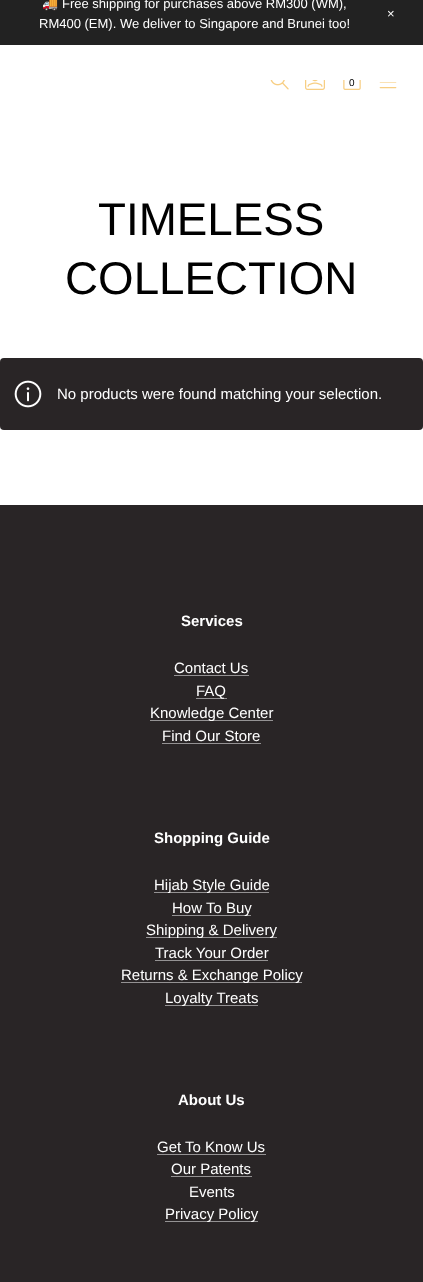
<!DOCTYPE html>
<meta charset="utf-8">
<style>body { margin: 0 } canvas { display: block }</style>
<canvas id="canvas" width="423" height="1282"></canvas>
<img id="img1" src="img_01.png" hidden>
<img id="img2" src="img_02.png" hidden>
<img id="img3" src="img_03.png" hidden>
<img id="img4" src="img_04.png" hidden>
<img id="img5" src="img_05.png" hidden>
<script>
window.onload = function () {
	const canvas = document.getElementById("canvas");
	const ctx = canvas.getContext("2d");
	ctx.miterLimit = 4;
	ctx.fontKerning = "normal";
	function txt(s, x, y) {
		ctx.fillText(s, x, y);
	}
	function fill(x, y, w, h) {
		ctx.fillRect(x, y, w, h);
	}
	function round(x, y, w, h, r) {
		ctx.beginPath();
		ctx.roundRect(x, y, w, h, r);
		ctx.fill();
	}
	function img(id, x, y, w, h) {
		ctx.drawImage(document.getElementById(id), x, y, w, h);
	}

	ctx.fillStyle = "#FFFFFF";
	fill(0, 0, 423, 1282);
	ctx.fillStyle = "#222222";
	fill(0, 0, 423, 45);
	img("img1", 270, 80, 19, 10);
	img("img2", 305, 80, 20, 10);
	img("img3", 343, 80, 18, 10);
	img("img4", 379, 82, 18, 7);
	ctx.fillStyle = "#292526";
	round(0, 358, 423, 72, 4);
	img("img5", 14, 380, 28, 28);
	fill(0, 505, 423, 777);
	ctx.fillStyle = "#949293";
	fill(174, 675, 75, 1);
	fill(196, 698, 31, 1);
	fill(150, 720, 123, 1);
	fill(162, 743, 99, 1);
	fill(154, 892, 115, 1);
	fill(172, 915, 79, 1);
	fill(146, 937, 131, 1);
	fill(155, 960, 113, 1);
	fill(121, 982, 181, 1);
	fill(165, 1005, 93, 1);
	fill(157, 1154, 109, 1);
	fill(171, 1176, 81, 1);
	fill(165, 1221, 93, 1);
	ctx.font = "13px Noto Color Emoji";
	ctx.fillStyle = "#FFFFFF";
	txt("🚚", 42, 8);
	ctx.font = "13px Liberation Sans";
	txt("Free shipping for purchases above RM300 (WM),", 62, 8);
	txt("RM400 (EM). We deliver to Singapore and Brunei too!", 39, 28);
	txt("×", 387, 18);
	ctx.font = "10px Liberation Sans";
	ctx.fillStyle = "#000000";
	txt("0", 349, 86);
	ctx.font = "45.75px Liberation Sans";
	txt("TIMELESS", 98, 235);
	txt("COLLECTION", 65, 294);
	ctx.font = "15px Liberation Sans";
	ctx.fillStyle = "#FFFFFF";
	txt("No products were found matching your selection.", 57, 399);
	ctx.font = "bold 15px Liberation Sans";
	txt("Services", 181, 626);
	ctx.font = "15px Liberation Sans";
	txt("Contact Us", 174, 673);
	txt("FAQ", 196, 696);
	txt("Knowledge Center", 150, 718);
	txt("Find Our Store", 162, 741);
	ctx.font = "bold 15px Liberation Sans";
	txt("Shopping Guide", 154, 843);
	ctx.font = "15px Liberation Sans";
	txt("Hijab Style Guide", 154, 890);
	txt("How To Buy", 172, 913);
	txt("Shipping & Delivery", 146, 935);
	txt("Track Your Order", 155, 958);
	txt("Returns & Exchange Policy", 121, 980);
	txt("Loyalty Treats", 165, 1003);
	ctx.font = "bold 15px Liberation Sans";
	txt("About Us", 178, 1105);
	ctx.font = "15px Liberation Sans";
	txt("Get To Know Us", 157, 1152);
	txt("Our Patents", 171, 1174);
	txt("Events", 189, 1197);
	txt("Privacy Policy", 165, 1219);
};
</script>
